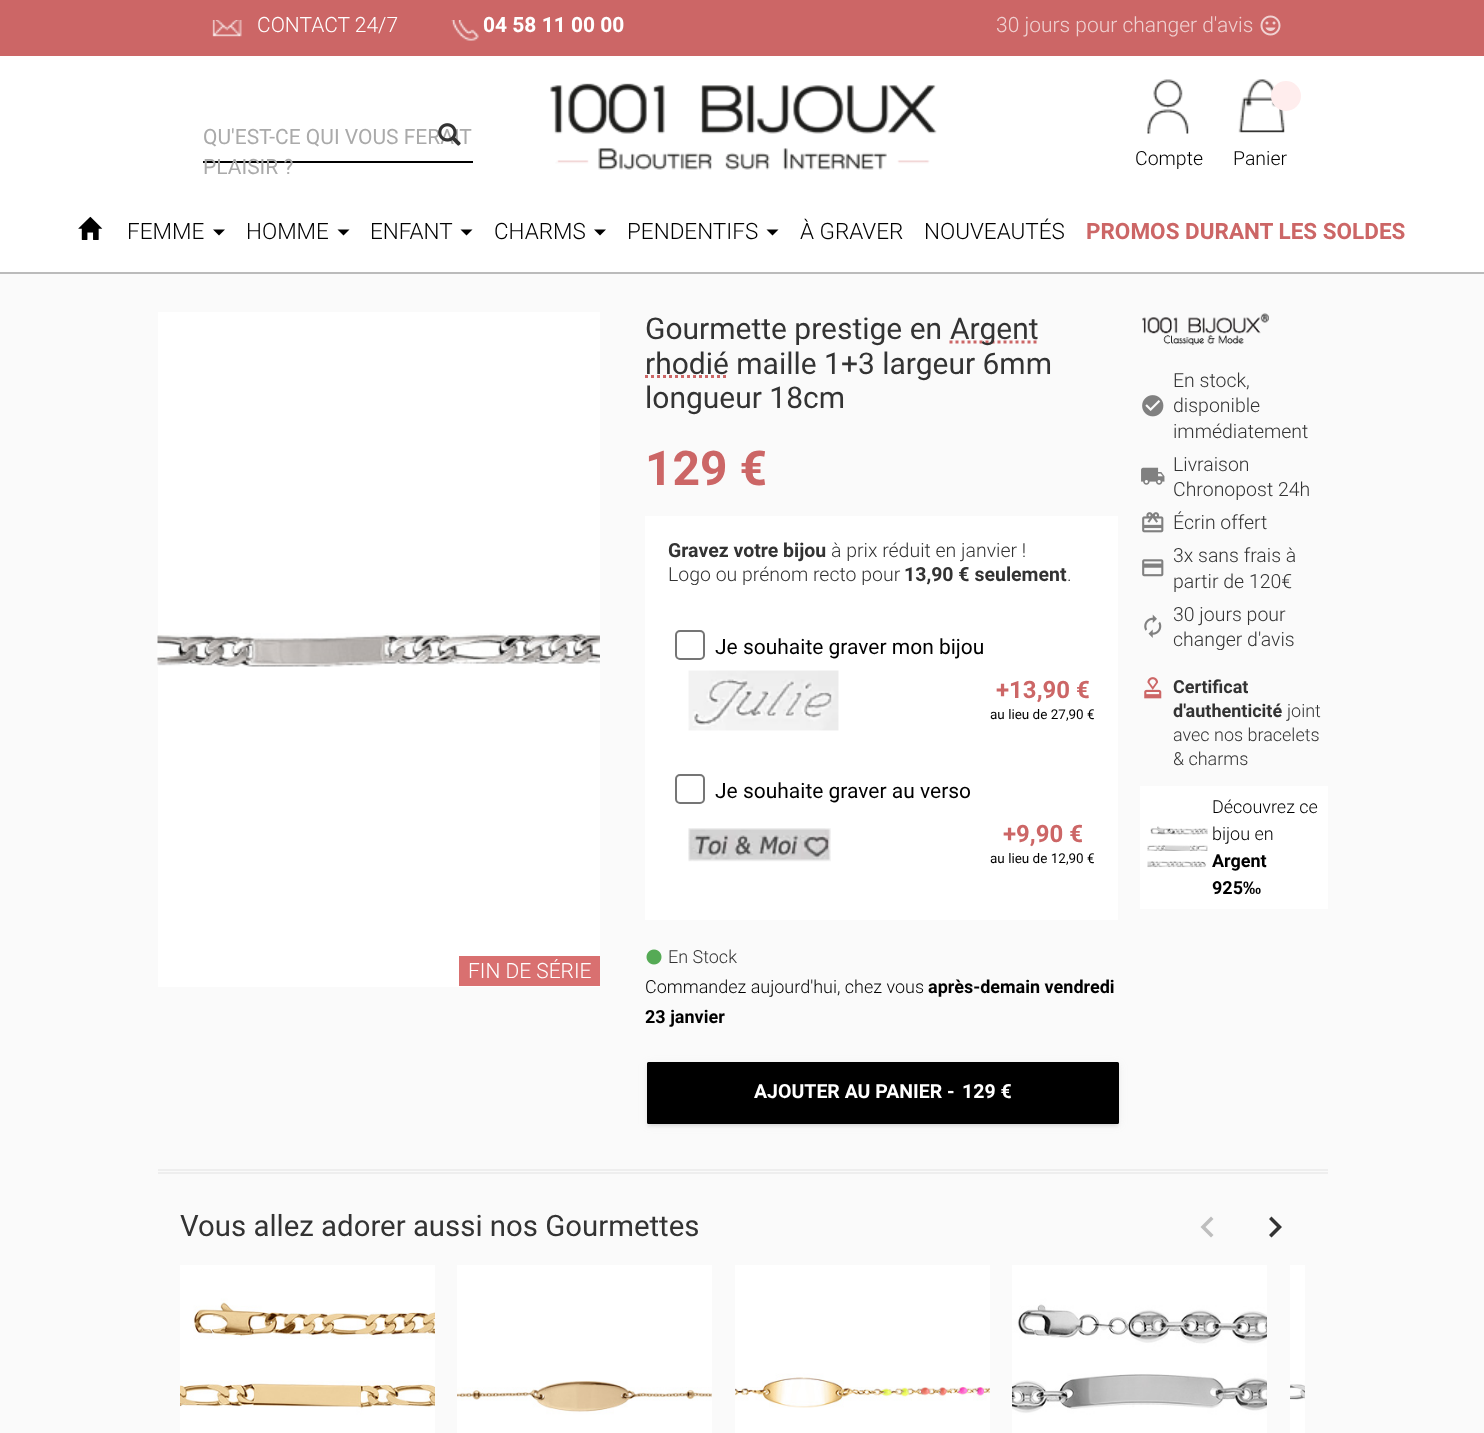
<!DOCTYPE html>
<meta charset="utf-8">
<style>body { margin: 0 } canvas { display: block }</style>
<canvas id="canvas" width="1484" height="1433"></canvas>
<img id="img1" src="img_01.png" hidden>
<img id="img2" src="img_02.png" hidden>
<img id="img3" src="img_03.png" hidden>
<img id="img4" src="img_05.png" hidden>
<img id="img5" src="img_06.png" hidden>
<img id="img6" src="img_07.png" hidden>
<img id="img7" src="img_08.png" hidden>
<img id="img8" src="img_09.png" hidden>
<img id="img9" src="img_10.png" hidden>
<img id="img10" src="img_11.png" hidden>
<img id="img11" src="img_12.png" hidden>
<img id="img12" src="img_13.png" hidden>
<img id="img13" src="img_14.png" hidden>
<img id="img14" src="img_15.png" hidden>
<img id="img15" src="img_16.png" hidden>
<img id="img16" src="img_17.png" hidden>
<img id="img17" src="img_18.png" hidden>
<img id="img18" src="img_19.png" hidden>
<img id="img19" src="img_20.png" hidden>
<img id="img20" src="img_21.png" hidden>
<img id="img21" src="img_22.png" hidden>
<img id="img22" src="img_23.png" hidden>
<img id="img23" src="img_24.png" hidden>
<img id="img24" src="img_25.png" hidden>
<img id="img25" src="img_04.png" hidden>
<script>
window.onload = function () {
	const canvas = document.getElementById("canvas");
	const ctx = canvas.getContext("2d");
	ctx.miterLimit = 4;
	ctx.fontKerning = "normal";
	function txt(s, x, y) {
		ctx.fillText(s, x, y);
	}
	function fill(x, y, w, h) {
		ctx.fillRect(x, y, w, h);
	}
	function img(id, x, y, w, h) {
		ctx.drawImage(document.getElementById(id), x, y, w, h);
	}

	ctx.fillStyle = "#FFFFFF";
	fill(0, 0, 1484, 1433);
	ctx.fillStyle = "#CC6666";
	fill(0, 0, 1484, 56);
	img("img1", 212, 20, 30, 17);
	img("img2", 451, 20, 28, 21);
	img("img3", 1260, 15, 21, 21);
	ctx.fillStyle = "#000000";
	fill(203, 161, 270, 2);
	img("img4", 550, 83, 387, 87);
	img("img5", 1147, 79, 42, 55);
	img("img6", 1238, 79, 47, 54);
	ctx.fillStyle = "#FFEDED";
	ctx.beginPath();
	ctx.arc(1286, 96, 15, 0, Math.PI * 2);
	ctx.fill();
	img("img7", 78, 216, 25, 24);
	ctx.fillStyle = "#000000";
	ctx.beginPath();
	ctx.moveTo(213, 229.5);
	ctx.lineTo(225, 229.5);
	ctx.lineTo(219, 235.5);
	ctx.closePath();
	ctx.fill();
	ctx.beginPath();
	ctx.moveTo(337.5, 229.5);
	ctx.lineTo(349.5, 229.5);
	ctx.lineTo(343.5, 235.5);
	ctx.closePath();
	ctx.fill();
	ctx.beginPath();
	ctx.moveTo(460.5, 229.5);
	ctx.lineTo(472.5, 229.5);
	ctx.lineTo(466.5, 235.5);
	ctx.closePath();
	ctx.fill();
	ctx.beginPath();
	ctx.moveTo(594, 229.5);
	ctx.lineTo(606, 229.5);
	ctx.lineTo(600, 235.5);
	ctx.closePath();
	ctx.fill();
	ctx.beginPath();
	ctx.moveTo(766.5, 229.5);
	ctx.lineTo(778.5, 229.5);
	ctx.lineTo(772.5, 235.5);
	ctx.closePath();
	ctx.fill();
	ctx.fillStyle = "#FAFAFA";
	fill(0, 274, 1484, 1159);
	ctx.fillStyle = "#BBBBBB";
	fill(0, 272, 1484, 2);
	ctx.beginPath();
	ctx.moveTo(949.5, 342);
	ctx.lineTo(1038, 342);
	ctx.strokeStyle = "#CC6666";
	ctx.lineWidth = 3;
	ctx.setLineDash([3, 3]);
	ctx.stroke();
	ctx.beginPath();
	ctx.moveTo(645, 376.5);
	ctx.lineTo(729, 376.5);
	ctx.stroke();
	ctx.fillStyle = "#FFFFFF";
	fill(645, 516, 473, 404);
	ctx.beginPath();
	ctx.roundRect(676, 631, 28, 28, 4);
	ctx.strokeStyle = "#757575";
	ctx.lineWidth = 2;
	ctx.setLineDash([]);
	ctx.stroke();
	img("img8", 688, 670, 151, 61);
	ctx.beginPath();
	ctx.roundRect(676, 775, 28, 28, 4);
	ctx.stroke();
	img("img9", 688, 828, 143, 34);
	img("img10", 646, 949, 16, 16);
	ctx.fillStyle = "rgba(153, 153, 153, 0.12)";
	ctx.filter = "blur(4px)";
	ctx.beginPath();
	ctx.roundRect(647, 1064, 472, 61, 1.5);
	ctx.fill();
	ctx.filter = "none";
	ctx.fillStyle = "rgba(153, 153, 153, 0.2)";
	ctx.filter = "blur(1px)";
	ctx.beginPath();
	ctx.rect(650, 1070, 466, 55);
	ctx.fill();
	ctx.filter = "none";
	ctx.fillStyle = "rgba(153, 153, 153, 0.14)";
	ctx.filter = "blur(1.5px)";
	ctx.beginPath();
	ctx.roundRect(647, 1065, 472, 62, 1.5);
	ctx.fill();
	ctx.filter = "none";
	ctx.fillStyle = "#000000";
	ctx.beginPath();
	ctx.roundRect(648, 1063, 470, 60, 0.5);
	ctx.fill();
	ctx.strokeStyle = "#000000";
	ctx.stroke();
	img("img11", 1142, 313, 127, 32);
	img("img12", 1142, 395, 22, 22);
	img("img13", 1141, 467, 24, 18);
	img("img14", 1142, 512, 22, 21);
	img("img15", 1142, 559, 22, 18);
	img("img16", 1144, 614, 18, 24);
	img("img17", 1144, 677, 18, 22);
	ctx.fillStyle = "#FFFFFF";
	fill(1140, 786, 188, 123);
	img("img18", 1147, 826, 61, 42);
	fill(158, 312, 442, 675);
	img("img19", 157, 633, 443, 34);
	ctx.fillStyle = "#D97070";
	fill(459, 956, 141, 30);
	ctx.fillStyle = "#EEEEEE";
	fill(158, 1169, 1170, 2);
	fill(158, 1172, 1170, 2);
	ctx.fillStyle = "#BEBEBE";
	ctx.beginPath();
	ctx.moveTo(1213.5, 1219);
	ctx.lineTo(1205.5, 1227);
	ctx.lineTo(1213.5, 1235);
	ctx.lineTo(1211, 1237.5);
	ctx.lineTo(1200.5, 1227);
	ctx.lineTo(1211, 1216.5);
	ctx.closePath();
	ctx.fill();
	ctx.fillStyle = "#333333";
	ctx.beginPath();
	ctx.moveTo(1271.5, 1216.5);
	ctx.lineTo(1282, 1227);
	ctx.lineTo(1271.5, 1237.5);
	ctx.lineTo(1269, 1235);
	ctx.lineTo(1277, 1227);
	ctx.lineTo(1269, 1219);
	ctx.closePath();
	ctx.fill();
	img("img20", 180, 1265, 255, 168);
	img("img21", 457, 1265, 255, 168);
	img("img22", 735, 1265, 255, 168);
	img("img23", 1012, 1265, 255, 168);
	img("img24", 1290, 1265, 15, 168);
	ctx.font = "300 21px Roboto";
	ctx.fillStyle = "#FFFFFF";
	txt("CONTACT 24/7", 257, 32);
	ctx.font = "bold 21px Roboto";
	txt("04 58 11 00 00", 483, 32);
	ctx.font = "300 21px Roboto";
	ctx.fillStyle = "#F0D2D2";
	txt("30 jours pour changer d'avis", 996, 32);
	ctx.font = "21px Roboto";
	ctx.fillStyle = "#AAAAAA";
	txt("QU'EST-CE QUI VOUS FERAIT", 203, 144);
	img("img25", 438, 123, 23, 23);
	txt("PLAISIR ?", 203, 174);
	ctx.font = "300 19.5px Roboto";
	ctx.fillStyle = "#000000";
	txt("Compte", 1135, 165);
	txt("Panier", 1233, 165);
	ctx.font = "300 22.5px Roboto";
	txt("FEMME", 127, 239);
	txt("HOMME", 246, 239);
	txt("ENFANT", 370, 239);
	txt("CHARMS", 494, 239);
	txt("PENDENTIFS", 627, 239);
	txt("À GRAVER", 800, 239);
	txt("NOUVEAUTÉS", 924, 239);
	ctx.font = "bold 22.5px Roboto";
	ctx.fillStyle = "#CC6666";
	txt("PROMOS DURANT LES SOLDES", 1086, 239);
	ctx.font = "30px Roboto";
	ctx.fillStyle = "#333333";
	txt("Gourmette prestige en", 645, 339);
	txt("Argent", 950, 339);
	txt("rhodié maille 1+3 largeur 6mm", 645, 374);
	txt("longueur 18cm", 645, 408);
	ctx.font = "bold 48px Roboto";
	ctx.fillStyle = "#CC6666";
	txt("129 €", 645, 485);
	ctx.font = "bold 19.5px Roboto";
	ctx.fillStyle = "#333333";
	txt("Gravez votre bijou", 668, 557);
	ctx.font = "300 19.5px Roboto";
	txt("à prix réduit en janvier !", 831, 557);
	txt("Logo ou prénom recto pour", 668, 581);
	ctx.font = "bold 19.5px Roboto";
	txt("13,90 € seulement", 904, 581);
	ctx.font = "300 19.5px Roboto";
	txt(".", 1067, 581);
	ctx.font = "21px Roboto";
	ctx.fillStyle = "#000000";
	txt("Je souhaite graver mon bijou", 715, 654);
	ctx.font = "bold 24px Roboto";
	ctx.fillStyle = "#CC6666";
	txt("+13,90 €", 996, 698);
	ctx.font = "13.5px Roboto";
	ctx.fillStyle = "#000000";
	txt("au lieu de 27,90 €", 990, 719);
	ctx.font = "21px Roboto";
	txt("Je souhaite graver au verso", 715, 798);
	ctx.font = "bold 24px Roboto";
	ctx.fillStyle = "#CC6666";
	txt("+9,90 €", 1003, 842);
	ctx.font = "13.5px Roboto";
	ctx.fillStyle = "#000000";
	txt("au lieu de 12,90 €", 990, 863);
	ctx.font = "300 18px Roboto";
	ctx.fillStyle = "#333333";
	txt("En Stock", 668, 963);
	ctx.fillStyle = "#000000";
	txt("Commandez aujourd'hui, chez vous", 645, 993);
	ctx.font = "bold 18px Roboto";
	txt("après-demain vendredi", 928, 993);
	txt("23 janvier", 645, 1023);
	ctx.font = "bold 19.5px Roboto";
	ctx.fillStyle = "#FFFFFF";
	txt("AJOUTER AU PANIER -", 754, 1098);
	txt("129 €", 962, 1098);
	ctx.font = "300 19.5px Roboto";
	ctx.fillStyle = "#333333";
	txt("En stock,", 1173, 387);
	txt("disponible", 1173, 412);
	txt("immédiatement", 1173, 438);
	txt("Livraison", 1173, 471);
	txt("Chronopost 24h", 1173, 496);
	txt("Écrin offert", 1173, 529);
	txt("3x sans frais à", 1173, 562);
	txt("partir de 120€", 1173, 588);
	txt("30 jours pour", 1173, 621);
	txt("changer d'avis", 1173, 646);
	ctx.font = "bold 18px Roboto";
	txt("Certificat", 1173, 693);
	txt("d'authenticité", 1173, 717);
	ctx.font = "300 18px Roboto";
	txt("joint", 1287, 717);
	txt("avec nos bracelets", 1173, 741);
	txt("& charms", 1173, 765);
	ctx.fillStyle = "#000000";
	txt("Découvrez ce", 1212, 813);
	txt("bijou en", 1212, 840);
	ctx.font = "bold 18px Roboto";
	txt("Argent", 1212, 867);
	txt("925", 1212, 894);
	ctx.font = "bold 18px Liberation Sans";
	txt("‰", 1243, 894);
	ctx.font = "300 21px Roboto";
	ctx.fillStyle = "#FFFFFF";
	txt("FIN DE SÉRIE", 468, 978);
	ctx.font = "29.4px Roboto";
	ctx.fillStyle = "#333333";
	txt("Vous allez adorer aussi nos Gourmettes", 180, 1236);
};
</script>
